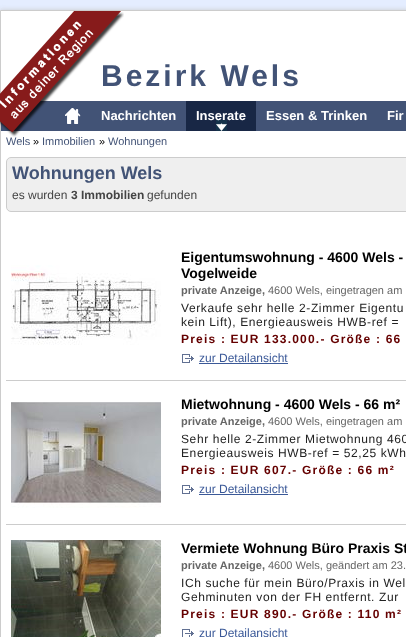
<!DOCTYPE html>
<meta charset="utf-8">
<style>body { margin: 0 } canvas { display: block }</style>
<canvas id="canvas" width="406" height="637"></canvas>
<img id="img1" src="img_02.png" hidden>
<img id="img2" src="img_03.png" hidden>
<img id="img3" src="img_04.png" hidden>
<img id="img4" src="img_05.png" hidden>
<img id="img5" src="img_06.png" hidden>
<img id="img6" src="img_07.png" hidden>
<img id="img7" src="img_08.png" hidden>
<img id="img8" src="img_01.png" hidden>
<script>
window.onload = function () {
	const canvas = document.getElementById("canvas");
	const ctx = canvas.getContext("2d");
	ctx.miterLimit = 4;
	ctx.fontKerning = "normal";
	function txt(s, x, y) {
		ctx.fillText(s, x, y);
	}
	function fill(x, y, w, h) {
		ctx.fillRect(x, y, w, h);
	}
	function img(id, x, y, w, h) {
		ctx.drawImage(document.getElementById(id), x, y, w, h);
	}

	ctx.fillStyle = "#E4EDFF";
	fill(0, 0, 406, 637);
	ctx.fillStyle = "#CCCCCC";
	ctx.filter = "blur(2.5px)";
	ctx.beginPath();
	ctx.rect(0, 10, 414, 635);
	ctx.fill();
	ctx.filter = "none";
	ctx.fillStyle = "#FFFFFF";
	ctx.beginPath();
	ctx.rect(0.5, 10.5, 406, 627);
	ctx.fill();
	ctx.strokeStyle = "#CCCCCC";
	ctx.stroke();
	ctx.fillStyle = "#425376";
	fill(1, 101, 405, 30);
	img("img1", 65, 108, 16, 16);
	ctx.fillStyle = "#182745";
	fill(186, 101, 70, 30);
	img("img2", 216, 120, 11, 11);
	ctx.fillStyle = "#EFEFEF";
	ctx.beginPath();
	ctx.roundRect(6.5, 157.5, 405, 54, 4.5);
	ctx.fill();
	ctx.stroke();
	ctx.fillStyle = "#CCCCCC";
	fill(6, 380, 400, 1);
	img("img3", 11, 265, 150, 80);
	img("img4", 182, 354, 12, 9);
	ctx.fillStyle = "#3B5998";
	fill(199, 363, 89, 1);
	ctx.fillStyle = "#CCCCCC";
	fill(6, 524, 400, 1);
	img("img5", 11, 402, 150, 106);
	img("img4", 182, 485, 12, 9);
	ctx.fillStyle = "#3B5998";
	fill(199, 494, 89, 1);
	img("img6", 11, 540, 150, 97);
	img("img7", 182, 629, 12, 8);
	ctx.letterSpacing = "3px";
	ctx.font = "bold 30px Liberation Sans";
	ctx.fillStyle = "#425376";
	txt("Bezirk Wels", 101, 86);
	ctx.letterSpacing = "0px";
	ctx.font = "bold 13px Liberation Sans";
	ctx.fillStyle = "#FFFFFF";
	txt("Nachrichten", 101, 120);
	img("img8", 0, 11, 124, 126);
	txt("Inserate", 196, 120);
	txt("Essen & Trinken", 266, 120);
	txt("Fir", 387, 120);
	ctx.font = "11px Liberation Sans";
	ctx.fillStyle = "#425376";
	txt("Wels", 6, 145);
	ctx.fillStyle = "#000000";
	txt("»", 33, 145);
	ctx.fillStyle = "#425376";
	txt("Immobilien", 42, 145);
	ctx.fillStyle = "#000000";
	txt("»", 99, 145);
	ctx.fillStyle = "#425376";
	txt("Wohnungen", 108, 145);
	ctx.font = "bold 18px Liberation Sans";
	txt("Wohnungen Wels", 12, 179);
	ctx.font = "12px Liberation Sans";
	ctx.fillStyle = "#444444";
	txt("es wurden", 12, 199);
	ctx.font = "bold 12px Liberation Sans";
	txt("3 Immobilien", 71, 199);
	ctx.font = "12px Liberation Sans";
	txt("gefunden", 147, 199);
	ctx.font = "bold 14px Liberation Sans";
	ctx.fillStyle = "#000000";
	txt("Eigentumswohnung - 4600 Wels -", 181, 262);
	txt("Vogelweide", 181, 278);
	ctx.font = "bold 11px Liberation Sans";
	ctx.fillStyle = "#666666";
	txt("private Anzeige,", 181, 294);
	ctx.font = "11px Liberation Sans";
	txt("4600 Wels, eingetragen am", 268, 294);
	ctx.letterSpacing = "0.6px";
	ctx.font = "12px Liberation Sans";
	ctx.fillStyle = "#222222";
	txt("Verkaufe sehr helle 2-Zimmer Eigentu", 181, 312);
	txt("kein Lift), Energieausweis HWB-ref =", 181, 326);
	ctx.letterSpacing = "1.2px";
	ctx.font = "bold 12px Liberation Sans";
	ctx.fillStyle = "#650000";
	txt("Preis : EUR 133.000.- Größe : 66", 181, 343);
	ctx.letterSpacing = "0px";
	ctx.font = "12px Liberation Sans";
	ctx.fillStyle = "#3B5998";
	txt("zur Detailansicht", 199, 362);
	ctx.font = "bold 14px Liberation Sans";
	ctx.fillStyle = "#000000";
	txt("Mietwohnung - 4600 Wels - 66 m²", 181, 409);
	ctx.font = "bold 11px Liberation Sans";
	ctx.fillStyle = "#666666";
	txt("private Anzeige,", 181, 425);
	ctx.font = "11px Liberation Sans";
	txt("4600 Wels, eingetragen am", 268, 425);
	ctx.letterSpacing = "0.6px";
	ctx.font = "12px Liberation Sans";
	ctx.fillStyle = "#222222";
	txt("Sehr helle 2-Zimmer Mietwohnung 460", 181, 443);
	txt("Energieausweis HWB-ref = 52,25 kWh", 181, 457);
	ctx.letterSpacing = "1.2px";
	ctx.font = "bold 12px Liberation Sans";
	ctx.fillStyle = "#650000";
	txt("Preis : EUR 607.- Größe : 66 m²", 181, 474);
	ctx.letterSpacing = "0px";
	ctx.font = "12px Liberation Sans";
	ctx.fillStyle = "#3B5998";
	txt("zur Detailansicht", 199, 493);
	ctx.font = "bold 14px Liberation Sans";
	ctx.fillStyle = "#000000";
	txt("Vermiete Wohnung Büro Praxis St", 181, 553);
	ctx.font = "bold 11px Liberation Sans";
	ctx.fillStyle = "#666666";
	txt("private Anzeige,", 181, 569);
	ctx.font = "11px Liberation Sans";
	txt("4600 Wels, geändert am 23.", 268, 569);
	ctx.letterSpacing = "0.6px";
	ctx.font = "12px Liberation Sans";
	ctx.fillStyle = "#222222";
	txt("ICh suche für mein Büro/Praxis in Wel", 181, 587);
	txt("Gehminuten von der FH entfernt. Zur", 181, 601);
	ctx.letterSpacing = "1.2px";
	ctx.font = "bold 12px Liberation Sans";
	ctx.fillStyle = "#650000";
	txt("Preis : EUR 890.- Größe : 110 m²", 181, 618);
	ctx.letterSpacing = "0px";
	ctx.font = "12px Liberation Sans";
	ctx.fillStyle = "#3B5998";
	txt("zur Detailansicht", 199, 637);
};
</script>
